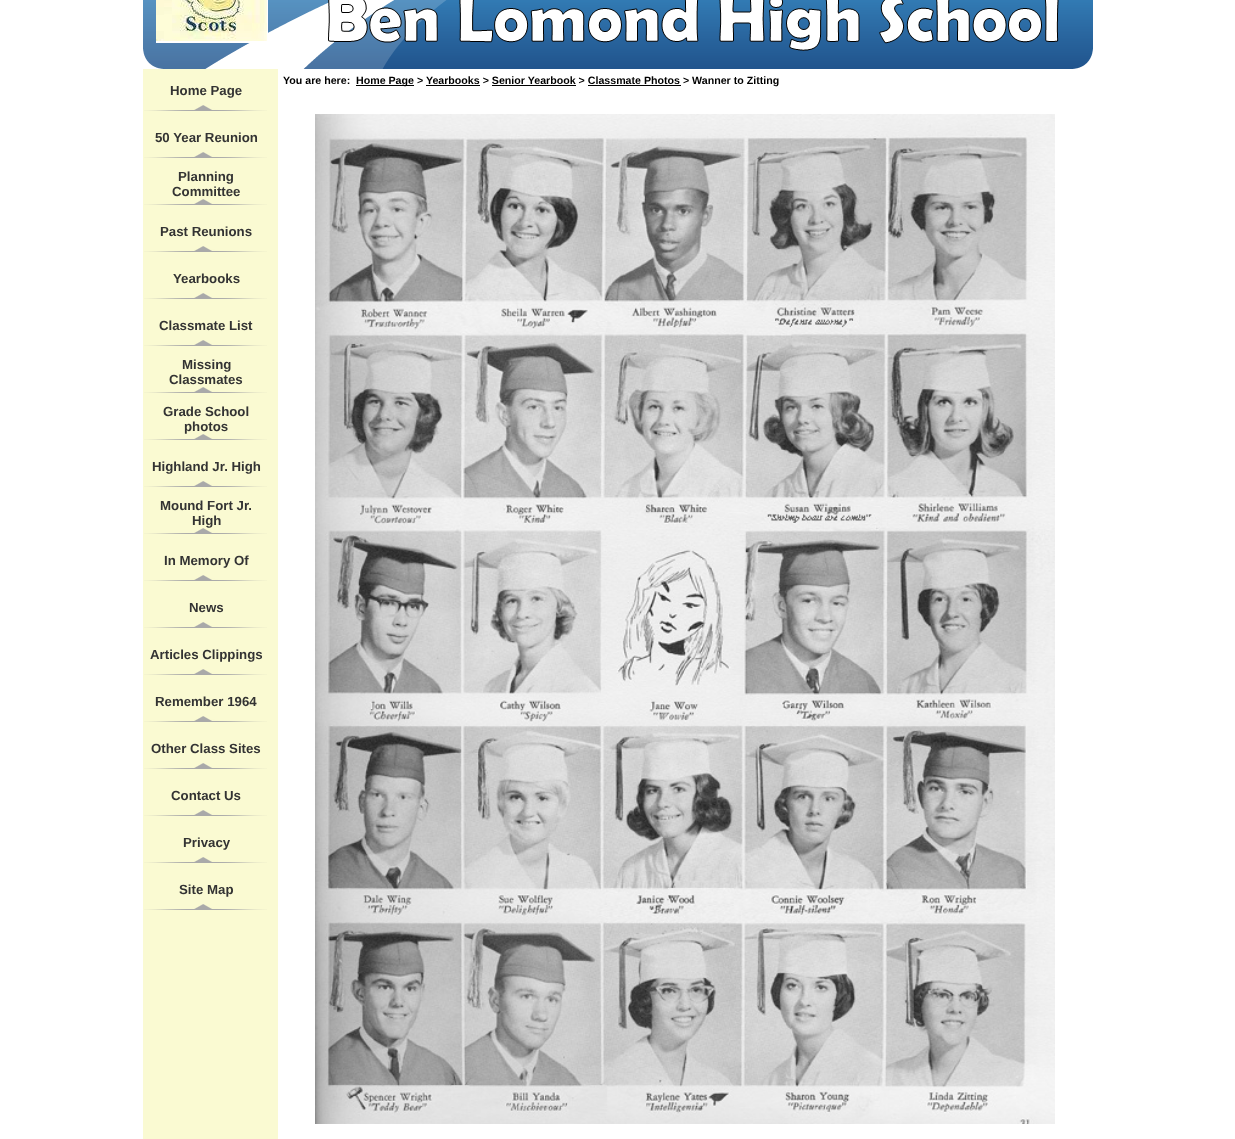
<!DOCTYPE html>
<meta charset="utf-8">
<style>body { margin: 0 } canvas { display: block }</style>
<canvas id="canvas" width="1235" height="1139"></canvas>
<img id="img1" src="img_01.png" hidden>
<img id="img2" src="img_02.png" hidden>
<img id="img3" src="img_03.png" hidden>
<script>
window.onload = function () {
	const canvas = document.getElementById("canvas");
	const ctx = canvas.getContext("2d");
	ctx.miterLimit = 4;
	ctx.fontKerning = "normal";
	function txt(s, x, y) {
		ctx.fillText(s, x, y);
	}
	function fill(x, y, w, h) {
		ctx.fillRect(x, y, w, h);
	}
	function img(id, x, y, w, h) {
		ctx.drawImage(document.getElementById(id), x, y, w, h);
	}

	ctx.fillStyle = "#FFFFFF";
	fill(0, 0, 1235, 1139);
	img("img1", 143, 0, 950, 69);
	ctx.fillStyle = "#000000";
	fill(356, 85, 58, 1);
	fill(426, 85, 54, 1);
	fill(492, 85, 84, 1);
	fill(588, 85, 93, 1);
	img("img2", 315, 114, 740, 1010);
	ctx.fillStyle = "#FAFAD2";
	fill(143, 69, 135, 1070);
	img("img3", 144, 105, 123, 6);
	img("img3", 144, 152, 123, 6);
	img("img3", 144, 199, 123, 6);
	img("img3", 144, 246, 123, 6);
	img("img3", 144, 293, 123, 6);
	img("img3", 144, 340, 123, 6);
	img("img3", 144, 387, 123, 6);
	img("img3", 144, 434, 123, 6);
	img("img3", 144, 481, 123, 6);
	img("img3", 144, 528, 123, 6);
	img("img3", 144, 575, 123, 6);
	img("img3", 144, 622, 123, 6);
	img("img3", 144, 669, 123, 6);
	img("img3", 144, 716, 123, 6);
	img("img3", 144, 763, 123, 6);
	img("img3", 144, 810, 123, 6);
	img("img3", 144, 857, 123, 6);
	img("img3", 144, 904, 123, 6);
	ctx.font = "bold 10.65px Liberation Sans";
	ctx.fillStyle = "#000000";
	txt("You are here:", 283, 84);
	txt("Home Page > Yearbooks > Senior Yearbook > Classmate Photos > Wanner to Zitting", 356, 84);
	ctx.font = "bold 13.25px Liberation Sans";
	ctx.fillStyle = "#333333";
	txt("Home Page", 170, 95);
	txt("50 Year Reunion", 155, 142);
	txt("Planning", 178, 181);
	txt("Committee", 172, 196);
	txt("Past Reunions", 160, 236);
	txt("Yearbooks", 173, 283);
	txt("Classmate List", 159, 330);
	txt("Missing", 182, 369);
	txt("Classmates", 169, 384);
	txt("Grade School", 163, 416);
	txt("photos", 184, 431);
	txt("Highland Jr. High", 152, 471);
	txt("Mound Fort Jr.", 160, 510);
	txt("High", 192, 525);
	txt("In Memory Of", 164, 565);
	txt("News", 189, 612);
	txt("Articles Clippings", 150, 659);
	txt("Remember 1964", 155, 706);
	txt("Other Class Sites", 151, 753);
	txt("Contact Us", 171, 800);
	txt("Privacy", 183, 847);
	txt("Site Map", 179, 894);
};
</script>
